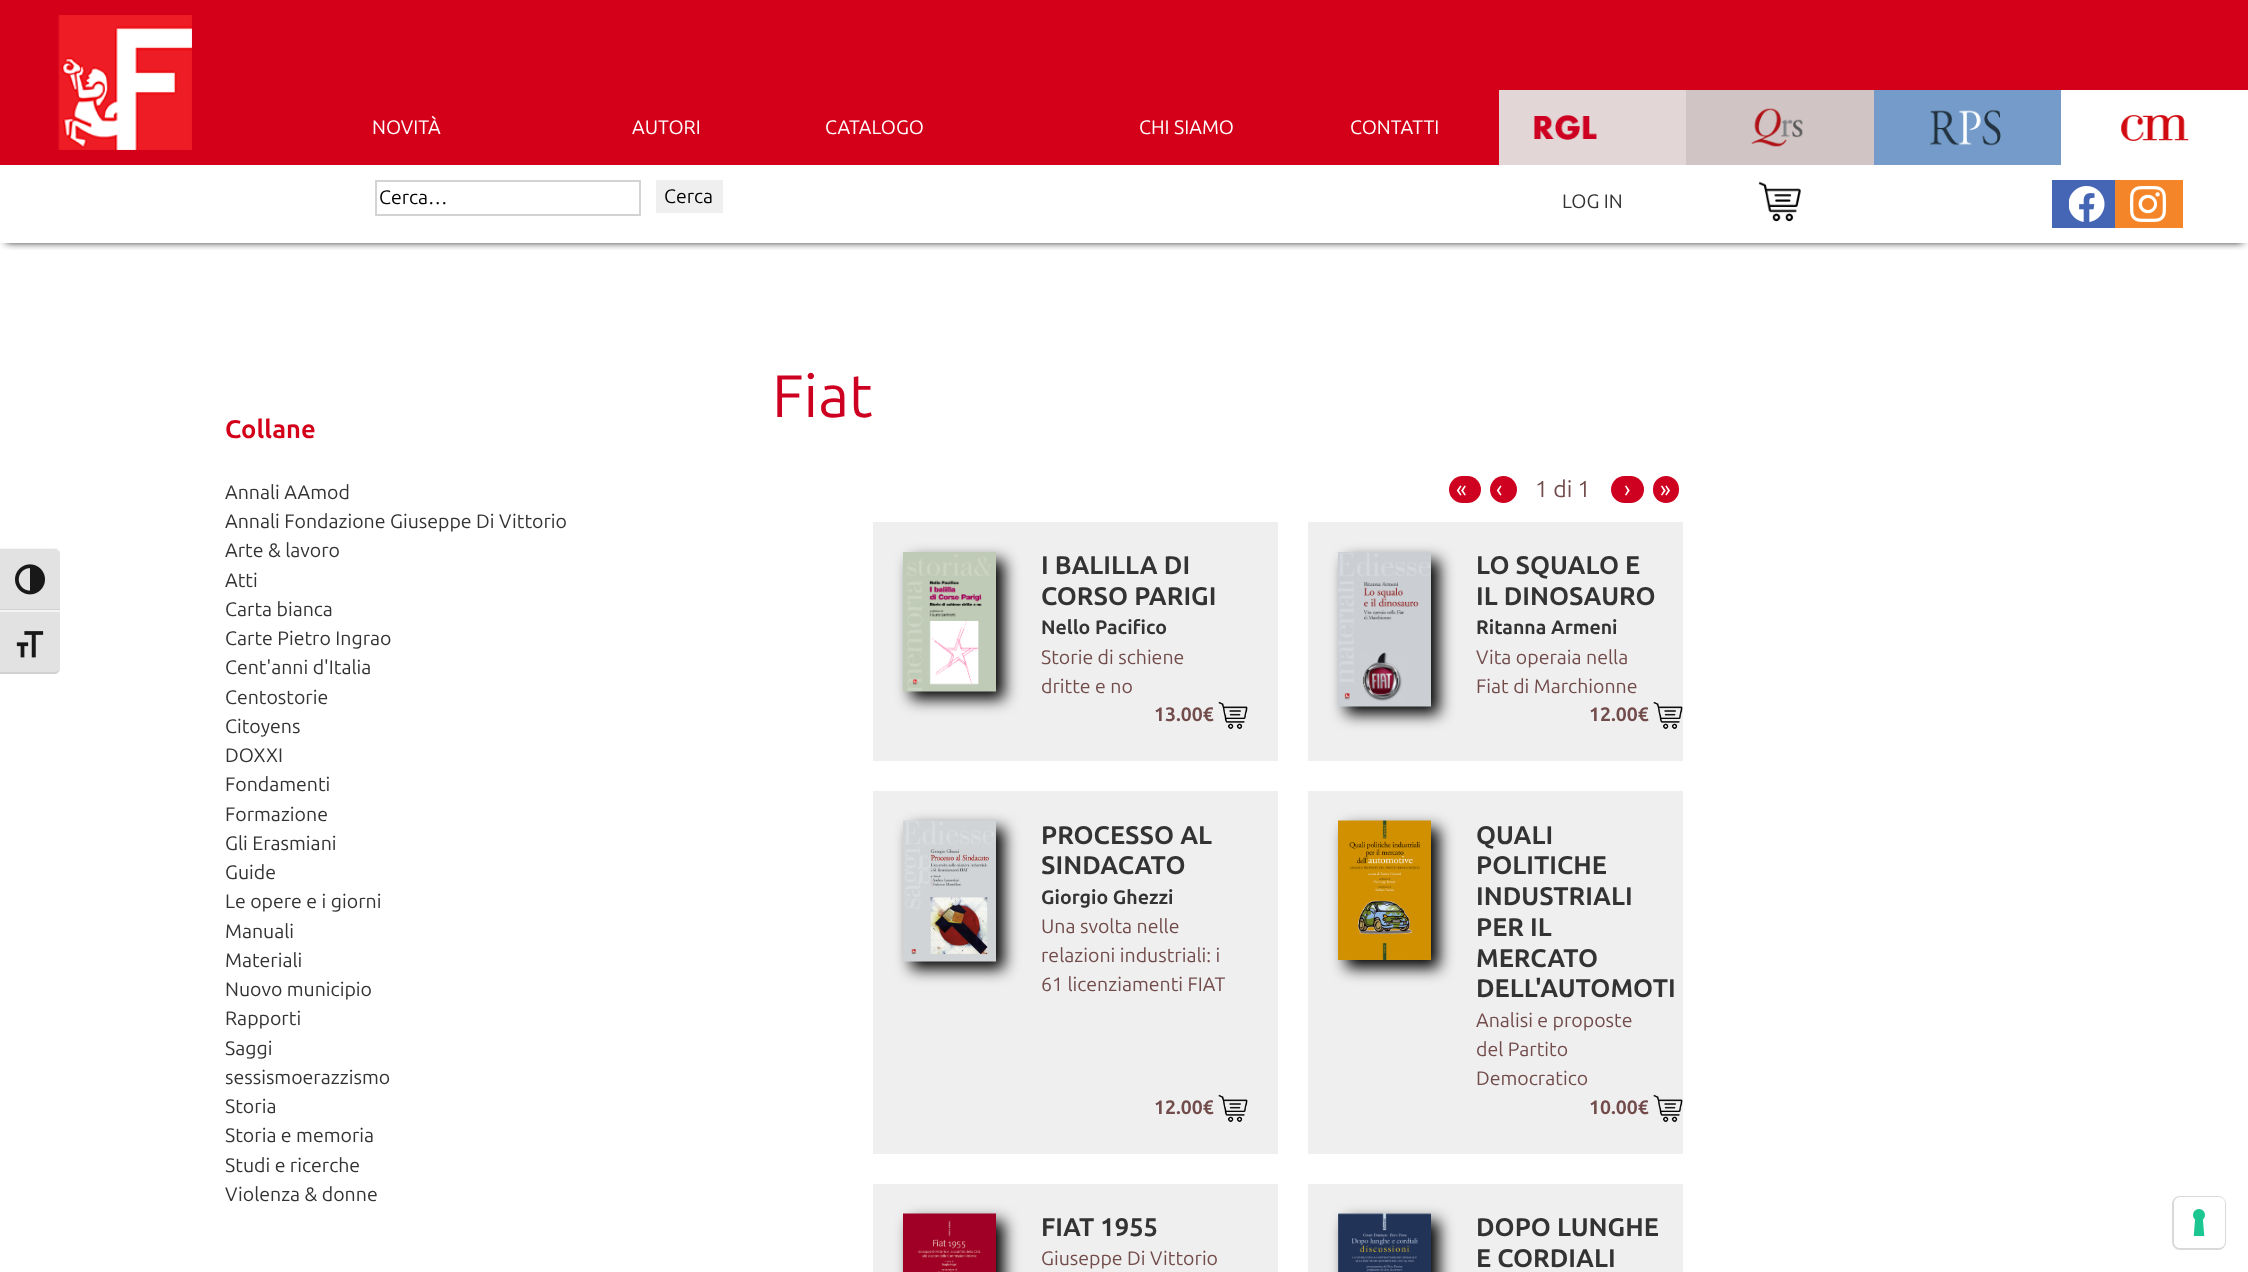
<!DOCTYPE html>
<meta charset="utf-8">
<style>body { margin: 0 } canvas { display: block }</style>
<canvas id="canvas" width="2248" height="1272"></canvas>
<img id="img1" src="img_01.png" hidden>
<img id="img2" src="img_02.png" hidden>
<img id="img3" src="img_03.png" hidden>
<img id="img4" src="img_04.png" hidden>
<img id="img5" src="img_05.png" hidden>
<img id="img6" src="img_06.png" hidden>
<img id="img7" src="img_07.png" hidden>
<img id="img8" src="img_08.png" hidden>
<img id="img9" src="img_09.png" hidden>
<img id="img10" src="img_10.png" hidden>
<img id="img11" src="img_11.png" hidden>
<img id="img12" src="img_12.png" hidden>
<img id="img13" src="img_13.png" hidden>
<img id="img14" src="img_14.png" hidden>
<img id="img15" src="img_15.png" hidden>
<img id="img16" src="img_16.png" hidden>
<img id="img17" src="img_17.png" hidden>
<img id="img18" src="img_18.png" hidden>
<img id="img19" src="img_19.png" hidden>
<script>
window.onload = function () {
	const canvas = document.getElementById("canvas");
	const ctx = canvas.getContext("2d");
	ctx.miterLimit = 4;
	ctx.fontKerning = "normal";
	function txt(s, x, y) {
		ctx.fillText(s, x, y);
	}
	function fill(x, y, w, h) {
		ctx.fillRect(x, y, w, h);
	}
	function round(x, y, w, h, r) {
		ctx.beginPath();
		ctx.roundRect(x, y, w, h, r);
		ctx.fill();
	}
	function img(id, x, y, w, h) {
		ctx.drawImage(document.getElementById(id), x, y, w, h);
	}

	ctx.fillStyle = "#FFFFFF";
	fill(0, 0, 2248, 1272);
	ctx.fillStyle = "#E2E2E2";
	ctx.beginPath();
	ctx.roundRect(0, 548, 60, 63, [0, 6, 0, 0]);
	ctx.fill();
	ctx.fillStyle = "#F5F5F5";
	ctx.beginPath();
	ctx.moveTo(0, 549);
	ctx.lineTo(54, 549);
	ctx.bezierCurveTo(57, 549, 60, 551, 60, 554);
	ctx.bezierCurveTo(60, 550, 57, 548, 54, 548);
	ctx.lineTo(0, 548);
	ctx.closePath();
	ctx.fill();
	ctx.fillStyle = "#D2D2D2";
	fill(0, 609, 60, 1);
	img("img1", 15, 564, 30, 31);
	ctx.fillStyle = "#E2E2E2";
	ctx.beginPath();
	ctx.roundRect(0, 611, 60, 63, [0, 0, 6, 0]);
	ctx.fill();
	ctx.fillStyle = "#F5F5F5";
	fill(0, 610, 60, 2);
	ctx.fillStyle = "#D2D2D2";
	ctx.beginPath();
	ctx.moveTo(56, 674);
	ctx.bezierCurveTo(58, 673, 60, 670, 60, 668);
	ctx.bezierCurveTo(60, 670, 57, 672, 54, 672);
	ctx.lineTo(0, 672);
	ctx.lineTo(0, 674);
	ctx.closePath();
	ctx.fill();
	img("img2", 16, 631, 28, 27);
	ctx.fillStyle = "#D4001A";
	fill(0, 0, 2248, 165);
	img("img3", 58, 15, 134, 135);
	ctx.fillStyle = "#E2D6D6";
	fill(1499, 90, 187, 75);
	img("img4", 1533, 115, 64, 25);
	ctx.fillStyle = "#D0C5C4";
	fill(1686, 90, 188, 75);
	img("img5", 1751, 108, 52, 39);
	ctx.fillStyle = "#749BC9";
	fill(1874, 90, 187, 75);
	img("img6", 1930, 109, 71, 37);
	ctx.fillStyle = "#FFFFFF";
	fill(2061, 90, 187, 75);
	img("img7", 2121, 115, 68, 26);
	ctx.save();
	ctx.beginPath();
	ctx.rect(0, 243, 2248, 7);
	ctx.clip();
	ctx.fillStyle = "#000000";
	ctx.filter = "blur(4px)";
	ctx.beginPath();
	ctx.rect(6, 176, 2237, 66);
	ctx.fill();
	ctx.filter = "none";
	ctx.restore();
	ctx.strokeStyle = "#D3D3D3";
	ctx.lineWidth = 2;
	ctx.strokeRect(376, 181, 264, 34);
	ctx.fillStyle = "#EFEFEF";
	fill(656, 180, 67, 33);
	img("img8", 1758, 181, 43, 41);
	ctx.fillStyle = "#4566B5";
	fill(2052, 180, 63, 48);
	img("img9", 2069, 186, 36, 36);
	ctx.fillStyle = "#F58529";
	fill(2115, 180, 68, 48);
	img("img10", 2130, 186, 36, 36);
	ctx.fillStyle = "#CF0120";
	round(1449, 476, 32, 27, 13.5);
	ctx.beginPath();
	ctx.arc(1503.5, 489.5, 13.5, 0, Math.PI * 2);
	ctx.fill();
	round(1611, 476, 33, 27, 13.5);
	round(1653, 476, 26, 27, 13);
	ctx.fillStyle = "#EFEFEF";
	fill(873, 522, 405, 239);
	ctx.fillStyle = "#000000";
	ctx.filter = "blur(7.5px)";
	ctx.beginPath();
	ctx.rect(911, 560, 93, 139);
	ctx.fill();
	ctx.filter = "none";
	img("img11", 903, 552, 93, 140);
	img("img12", 1218, 701, 30, 29);
	ctx.fillStyle = "#EFEFEF";
	fill(1308, 522, 375, 239);
	ctx.fillStyle = "#000000";
	ctx.filter = "blur(7.5px)";
	ctx.beginPath();
	ctx.rect(1346, 560, 93, 154);
	ctx.fill();
	ctx.filter = "none";
	img("img13", 1338, 552, 93, 155);
	img("img14", 1653, 701, 30, 29);
	ctx.fillStyle = "#EFEFEF";
	fill(873, 791, 405, 363);
	ctx.fillStyle = "#000000";
	ctx.filter = "blur(7.5px)";
	ctx.beginPath();
	ctx.rect(911, 828, 93, 141);
	ctx.fill();
	ctx.filter = "none";
	img("img15", 903, 820, 93, 142);
	img("img12", 1218, 1094, 30, 29);
	ctx.fillStyle = "#EFEFEF";
	fill(1308, 791, 375, 363);
	ctx.fillStyle = "#000000";
	ctx.filter = "blur(7.5px)";
	ctx.beginPath();
	ctx.rect(1346, 828, 93, 140);
	ctx.fill();
	ctx.filter = "none";
	img("img16", 1338, 820, 93, 140);
	img("img14", 1653, 1094, 30, 29);
	ctx.fillStyle = "#EFEFEF";
	fill(873, 1184, 405, 88);
	ctx.fillStyle = "#000000";
	ctx.filter = "blur(7.5px)";
	ctx.beginPath();
	ctx.rect(911, 1221, 93, 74);
	ctx.fill();
	ctx.filter = "none";
	img("img17", 903, 1213, 93, 59);
	ctx.fillStyle = "#EFEFEF";
	fill(1308, 1184, 375, 88);
	ctx.fillStyle = "#000000";
	ctx.filter = "blur(7.5px)";
	ctx.beginPath();
	ctx.rect(1346, 1221, 93, 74);
	ctx.fill();
	ctx.filter = "none";
	img("img18", 1338, 1213, 93, 59);
	ctx.beginPath();
	ctx.roundRect(2173, 1197, 52, 52, 7);
	ctx.strokeStyle = "#D9D9D9";
	ctx.stroke();
	ctx.fillStyle = "#FFFFFF";
	round(2174, 1197, 51, 51, 6);
	img("img19", 2193, 1209, 12, 27);
	ctx.font = "19.5px Ubuntu";
	txt("NOVITÀ", 372, 134);
	txt("AUTORI", 632, 134);
	txt("CATALOGO", 825, 134);
	txt("CHI SIAMO", 1139, 134);
	txt("CONTATTI", 1350, 134);
	ctx.fillStyle = "#000000";
	txt("Cerca…", 379, 204);
	txt("Cerca", 664, 203);
	ctx.fillStyle = "#333333";
	txt("LOG IN", 1562, 208);
	ctx.font = "bold 25.5px Ubuntu";
	ctx.fillStyle = "#D4001A";
	txt("Collane", 225, 438);
	ctx.font = "19.5px Ubuntu";
	ctx.fillStyle = "#333333";
	txt("Annali AAmod", 225, 499);
	txt("Annali Fondazione Giuseppe Di Vittorio", 225, 528);
	txt("Arte & lavoro", 225, 557);
	txt("Atti", 225, 587);
	txt("Carta bianca", 225, 616);
	txt("Carte Pietro Ingrao", 225, 645);
	txt("Cent'anni d'Italia", 225, 674);
	txt("Centostorie", 225, 704);
	txt("Citoyens", 225, 733);
	txt("DOXXI", 225, 762);
	txt("Fondamenti", 225, 791);
	txt("Formazione", 225, 821);
	txt("Gli Erasmiani", 225, 850);
	txt("Guide", 225, 879);
	txt("Le opere e i giorni", 225, 908);
	txt("Manuali", 225, 938);
	txt("Materiali", 225, 967);
	txt("Nuovo municipio", 225, 996);
	txt("Rapporti", 225, 1025);
	txt("Saggi", 225, 1055);
	txt("sessismoerazzismo", 225, 1084);
	txt("Storia", 225, 1113);
	txt("Storia e memoria", 225, 1142);
	txt("Studi e ricerche", 225, 1172);
	txt("Violenza & donne", 225, 1201);
	ctx.font = "60px Ubuntu";
	ctx.fillStyle = "#CE0021";
	txt("Fiat", 772, 417);
	ctx.font = "23px Ubuntu";
	ctx.fillStyle = "#FFFFFF";
	txt("«", 1456, 497);
	txt("‹", 1496, 497);
	ctx.fillStyle = "#724B4B";
	txt("1 di 1", 1535, 497);
	ctx.fillStyle = "#FFFFFF";
	txt("›", 1624, 497);
	txt("»", 1660, 497);
	ctx.font = "bold 25.5px Ubuntu";
	ctx.fillStyle = "#333333";
	txt("I BALILLA DI", 1041, 574);
	txt("CORSO PARIGI", 1041, 605);
	ctx.font = "bold 19.5px Ubuntu";
	txt("Nello Pacifico", 1041, 634);
	ctx.font = "19.5px Ubuntu";
	ctx.fillStyle = "#724B4B";
	txt("Storie di schiene", 1041, 664);
	txt("dritte e no", 1041, 693);
	ctx.font = "bold 19.5px Ubuntu";
	txt("13.00€", 1154, 721);
	ctx.font = "bold 25.5px Ubuntu";
	ctx.fillStyle = "#333333";
	txt("LO SQUALO E", 1476, 574);
	txt("IL DINOSAURO", 1476, 605);
	ctx.font = "bold 19.5px Ubuntu";
	txt("Ritanna Armeni", 1476, 634);
	ctx.font = "19.5px Ubuntu";
	ctx.fillStyle = "#724B4B";
	txt("Vita operaia nella", 1476, 664);
	txt("Fiat di Marchionne", 1476, 693);
	ctx.font = "bold 19.5px Ubuntu";
	txt("12.00€", 1589, 721);
	ctx.font = "bold 25.5px Ubuntu";
	ctx.fillStyle = "#333333";
	txt("PROCESSO AL", 1041, 844);
	txt("SINDACATO", 1041, 874);
	ctx.font = "bold 19.5px Ubuntu";
	txt("Giorgio Ghezzi", 1041, 904);
	ctx.font = "19.5px Ubuntu";
	ctx.fillStyle = "#724B4B";
	txt("Una svolta nelle", 1041, 933);
	txt("relazioni industriali: i", 1041, 962);
	txt("61 licenziamenti FIAT", 1041, 991);
	ctx.font = "bold 19.5px Ubuntu";
	txt("12.00€", 1154, 1114);
	ctx.font = "bold 25.5px Ubuntu";
	ctx.fillStyle = "#333333";
	txt("QUALI", 1476, 844);
	txt("POLITICHE", 1476, 874);
	txt("INDUSTRIALI", 1476, 905);
	txt("PER IL", 1476, 936);
	txt("MERCATO", 1476, 967);
	txt("DELL'AUTOMOTI", 1476, 997);
	ctx.font = "19.5px Ubuntu";
	ctx.fillStyle = "#724B4B";
	txt("Analisi e proposte", 1476, 1027);
	txt("del Partito", 1476, 1056);
	txt("Democratico", 1476, 1085);
	ctx.font = "bold 19.5px Ubuntu";
	txt("10.00€", 1589, 1114);
	ctx.font = "bold 25.5px Ubuntu";
	ctx.fillStyle = "#333333";
	txt("FIAT 1955", 1041, 1236);
	ctx.font = "19.5px Ubuntu";
	ctx.fillStyle = "#724B4B";
	txt("Giuseppe Di Vittorio", 1041, 1265);
	ctx.font = "bold 25.5px Ubuntu";
	ctx.fillStyle = "#333333";
	txt("DOPO LUNGHE", 1476, 1236);
	txt("E CORDIALI", 1476, 1267);
};
</script>
